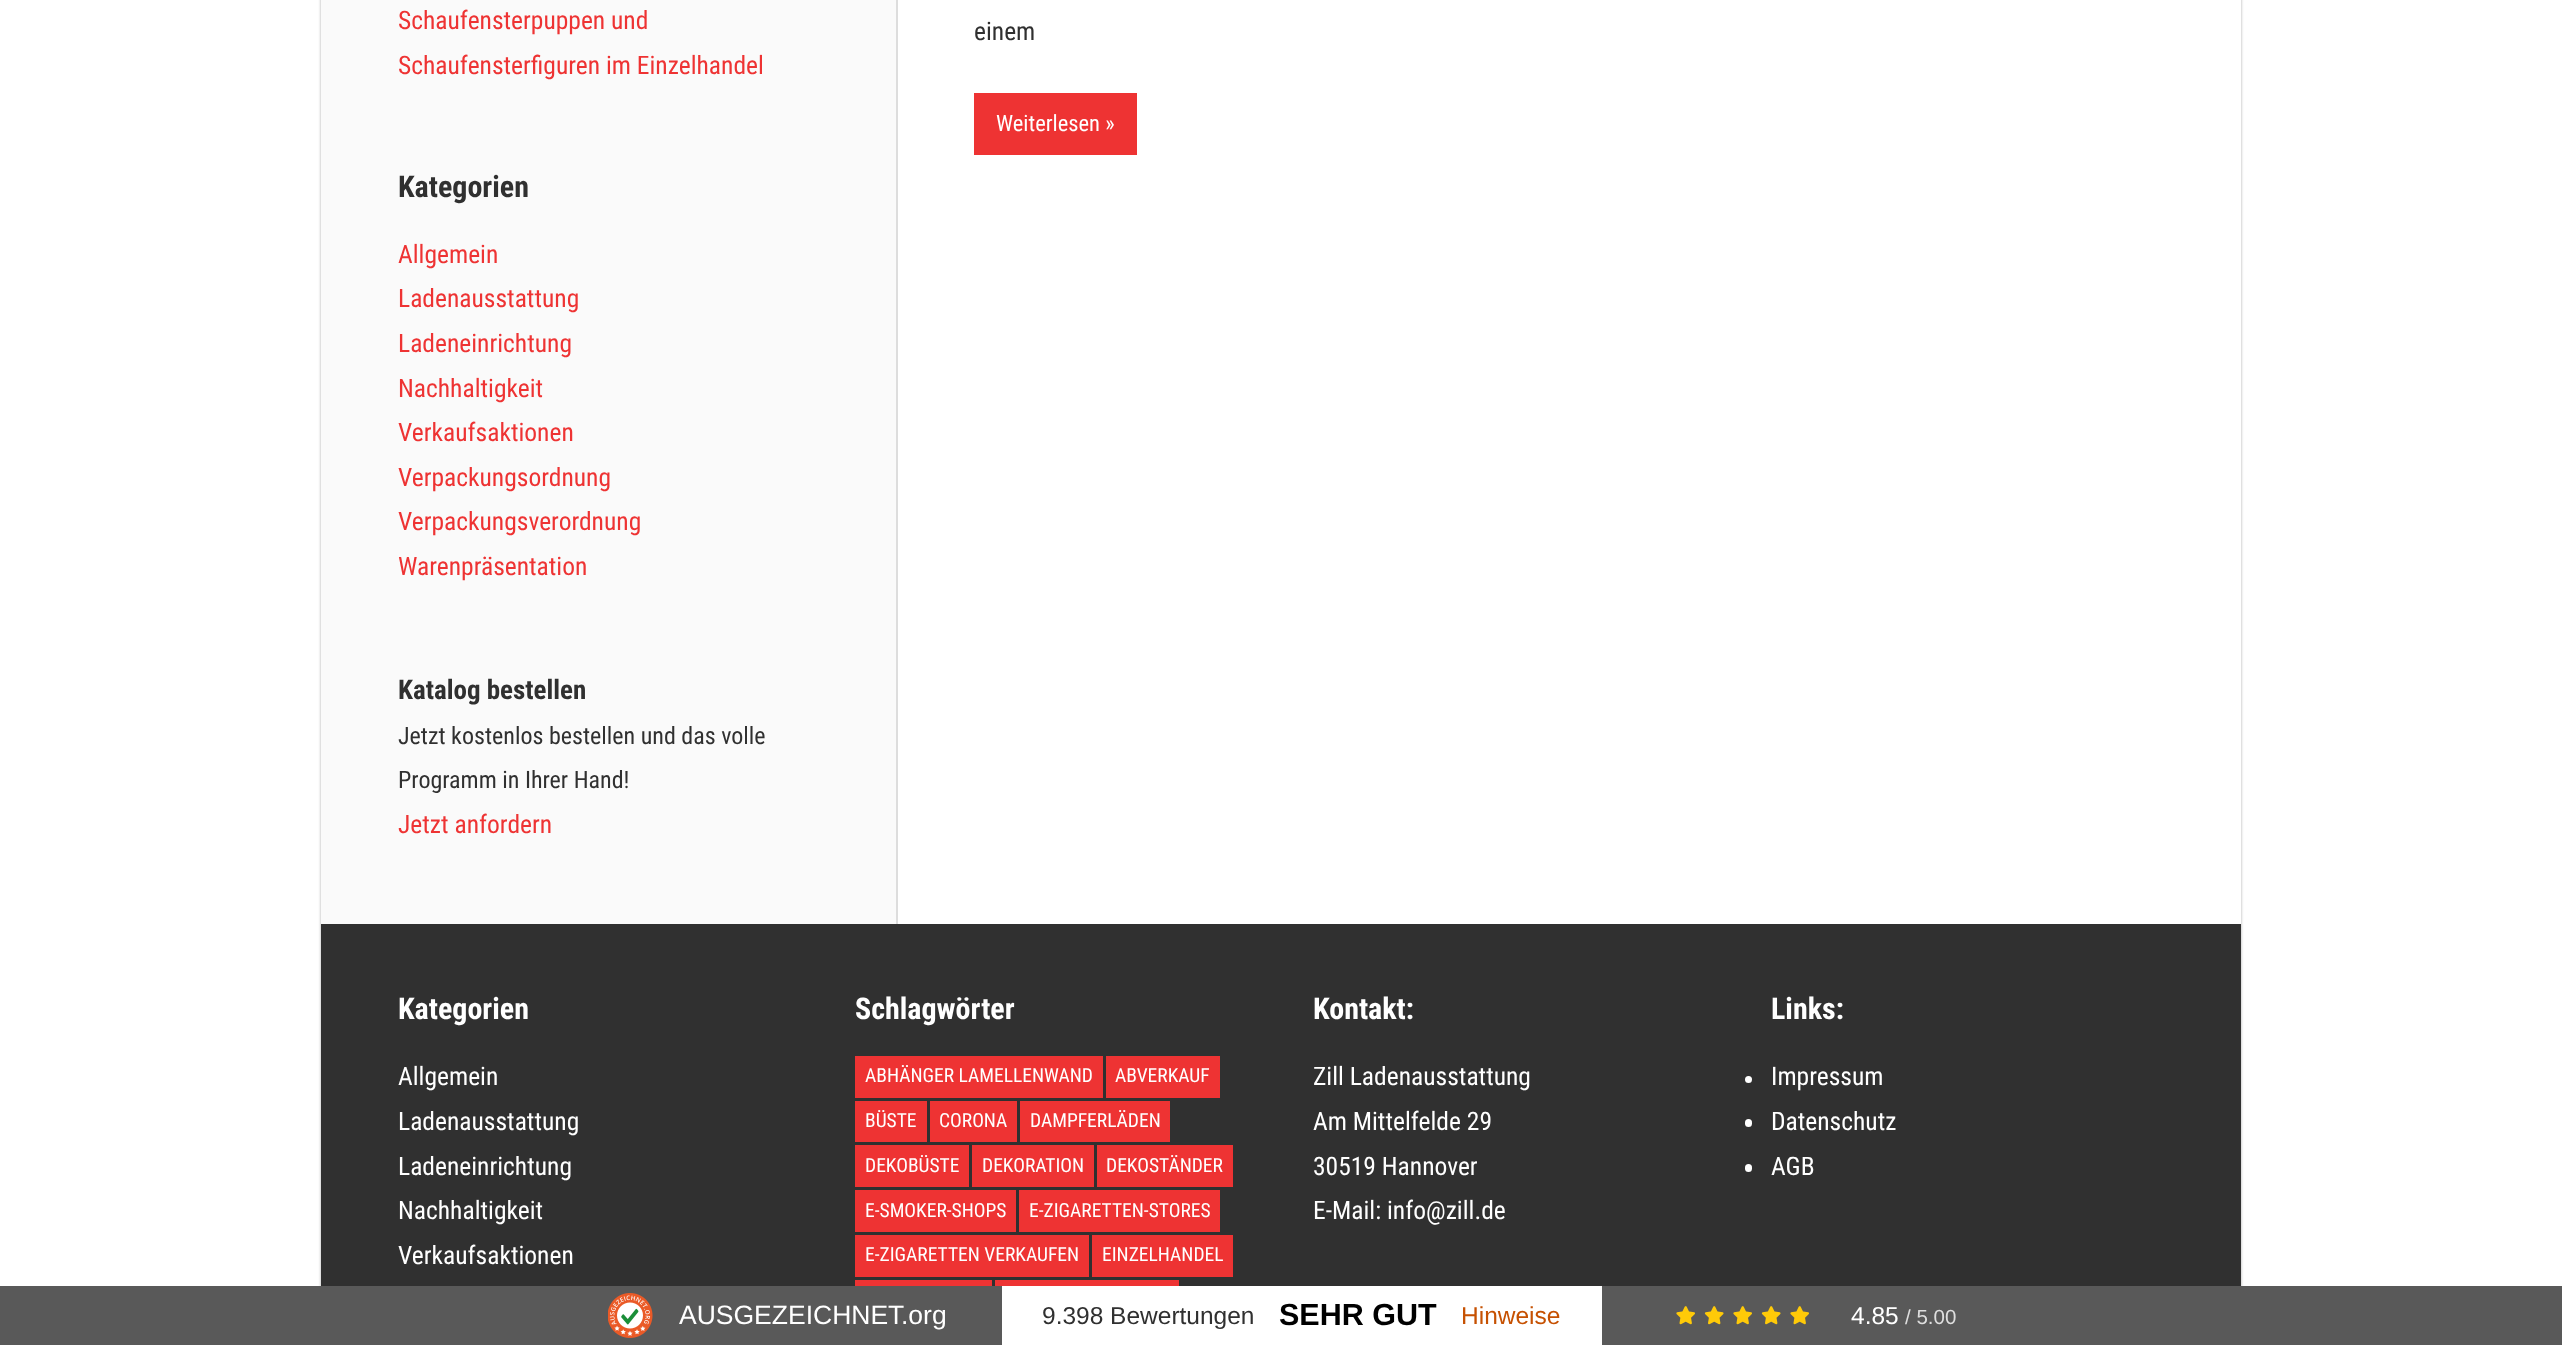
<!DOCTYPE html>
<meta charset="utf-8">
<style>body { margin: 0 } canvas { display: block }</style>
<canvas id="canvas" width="2562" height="1345"></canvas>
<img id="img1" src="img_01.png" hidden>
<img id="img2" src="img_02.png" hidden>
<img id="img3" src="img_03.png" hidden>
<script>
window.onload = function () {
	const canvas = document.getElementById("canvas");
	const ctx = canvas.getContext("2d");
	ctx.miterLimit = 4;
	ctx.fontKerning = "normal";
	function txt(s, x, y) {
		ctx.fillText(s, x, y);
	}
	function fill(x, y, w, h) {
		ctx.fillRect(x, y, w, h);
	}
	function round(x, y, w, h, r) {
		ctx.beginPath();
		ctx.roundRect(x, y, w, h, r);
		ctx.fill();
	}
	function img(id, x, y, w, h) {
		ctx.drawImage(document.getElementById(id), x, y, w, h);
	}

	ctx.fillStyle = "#FFFFFF";
	fill(0, 0, 2562, 1345);
	ctx.save();
	ctx.beginPath();
	ctx.moveTo(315, 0);
	ctx.lineTo(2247, 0);
	ctx.lineTo(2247, 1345);
	ctx.lineTo(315, 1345);
	ctx.closePath();
	ctx.moveTo(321, -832);
	ctx.lineTo(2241, -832);
	ctx.lineTo(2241, 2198);
	ctx.lineTo(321, 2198);
	ctx.closePath();
	ctx.clip("evenodd");
	ctx.fillStyle = "#AAAAAA";
	ctx.filter = "blur(1.5px)";
	ctx.beginPath();
	ctx.rect(321, -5, 1920, 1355);
	ctx.fill();
	ctx.filter = "none";
	ctx.restore();
	ctx.fillStyle = "#FAFAFA";
	fill(321, 0, 575, 924);
	ctx.fillStyle = "#DDDDDD";
	fill(896, 0, 2, 924);
	ctx.fillStyle = "#EE3333";
	fill(974, 93, 163, 62);
	ctx.fillStyle = "#303030";
	fill(321, 924, 1920, 362);
	ctx.fillStyle = "#EE3333";
	fill(855, 1056, 248, 42);
	fill(1106, 1056, 114, 42);
	fill(855, 1101, 72, 41);
	fill(930, 1101, 87, 41);
	fill(1020, 1101, 150, 41);
	fill(855, 1145, 114, 42);
	fill(972, 1145, 122, 42);
	fill(1097, 1145, 136, 42);
	fill(855, 1190, 161, 42);
	fill(1019, 1190, 201, 42);
	fill(855, 1235, 234, 42);
	fill(1092, 1235, 141, 42);
	fill(855, 1280, 137, 6);
	fill(995, 1280, 184, 6);
	ctx.fillStyle = "#FFFFFF";
	ctx.beginPath();
	ctx.arc(1748.5, 1079.5, 3.5, 0, Math.PI * 2);
	ctx.fill();
	round(1745, 1119, 7, 8, 3.5);
	round(1745, 1164, 7, 8, 3.5);
	ctx.fillStyle = "#595959";
	fill(0, 1286, 2562, 59);
	img("img1", 608, 1293, 45, 45);
	ctx.fillStyle = "#FFFFFF";
	fill(1002, 1286, 600, 59);
	img("img2", 1676, 1306, 19, 19);
	img("img3", 1704, 1306, 20, 19);
	img("img2", 1733, 1306, 19, 19);
	img("img3", 1761, 1306, 20, 19);
	img("img2", 1790, 1306, 19, 19);
	ctx.font = "25.5px Roboto Condensed";
	ctx.fillStyle = "#EE3333";
	txt("Schaufensterpuppen und", 398, 29);
	txt("Schaufensterfiguren im Einzelhandel", 398, 74);
	ctx.font = "bold 30px Roboto Condensed";
	ctx.fillStyle = "#303030";
	txt("Kategorien", 398, 197);
	ctx.font = "25.5px Roboto Condensed";
	ctx.fillStyle = "#EE3333";
	txt("Allgemein", 398, 263);
	txt("Ladenausstattung", 398, 307);
	txt("Ladeneinrichtung", 398, 352);
	txt("Nachhaltigkeit", 398, 397);
	txt("Verkaufsaktionen", 398, 441);
	txt("Verpackungsordnung", 398, 486);
	txt("Verpackungsverordnung", 398, 530);
	txt("Warenpräsentation", 398, 575);
	ctx.font = "bold 27px Roboto Condensed";
	ctx.fillStyle = "#303030";
	txt("Katalog bestellen", 398, 699);
	ctx.font = "24px Roboto Condensed";
	txt("Jetzt kostenlos bestellen und das volle", 398, 744);
	txt("Programm in Ihrer Hand!", 398, 788);
	ctx.font = "25.5px Roboto Condensed";
	ctx.fillStyle = "#EE3333";
	txt("Jetzt anfordern", 398, 833);
	ctx.fillStyle = "#303030";
	txt("einem", 974, 40);
	ctx.font = "22.5px Roboto Condensed";
	ctx.fillStyle = "#FFFFFF";
	txt("Weiterlesen »", 996, 131);
	ctx.font = "bold 30px Roboto Condensed";
	txt("Kategorien", 398, 1019);
	ctx.font = "25.5px Roboto Condensed";
	txt("Allgemein", 398, 1085);
	txt("Ladenausstattung", 398, 1130);
	txt("Ladeneinrichtung", 398, 1175);
	txt("Nachhaltigkeit", 398, 1219);
	txt("Verkaufsaktionen", 398, 1264);
	ctx.font = "bold 30px Roboto Condensed";
	txt("Schlagwörter", 855, 1019);
	ctx.font = "19.5px Roboto Condensed";
	txt("ABHÄNGER LAMELLENWAND", 865, 1082);
	txt("ABVERKAUF", 1115, 1082);
	txt("BÜSTE", 865, 1127);
	txt("CORONA", 939, 1127);
	txt("DAMPFERLÄDEN", 1030, 1127);
	txt("DEKOBÜSTE", 865, 1172);
	txt("DEKORATION", 982, 1172);
	txt("DEKOSTÄNDER", 1106, 1172);
	txt("E-SMOKER-SHOPS", 865, 1217);
	txt("E-ZIGARETTEN-STORES", 1029, 1217);
	txt("E-ZIGARETTEN VERKAUFEN", 865, 1261);
	txt("EINZELHANDEL", 1102, 1261);
	ctx.font = "bold 30px Roboto Condensed";
	txt("Kontakt:", 1313, 1019);
	ctx.font = "25.5px Roboto Condensed";
	txt("Zill Ladenausstattung", 1313, 1085);
	txt("Am Mittelfelde 29", 1313, 1130);
	txt("30519 Hannover", 1313, 1175);
	txt("E-Mail: info@zill.de", 1313, 1219);
	ctx.font = "bold 30px Roboto Condensed";
	txt("Links:", 1771, 1019);
	ctx.font = "25.5px Roboto Condensed";
	txt("Impressum", 1771, 1085);
	txt("Datenschutz", 1771, 1130);
	txt("AGB", 1771, 1175);
	ctx.font = "26.5px Liberation Sans";
	txt("AUSGEZEICHNET", 679, 1324);
	txt(".org", 901, 1324);
	ctx.font = "24.5px Liberation Sans";
	ctx.fillStyle = "#303030";
	txt("9.398 Bewertungen", 1042, 1324);
	ctx.font = "bold 30.5px Liberation Sans";
	ctx.fillStyle = "#000000";
	txt("SEHR GUT", 1279, 1325);
	ctx.font = "24.5px Liberation Sans";
	ctx.fillStyle = "#C65102";
	txt("Hinweise", 1461, 1324);
	ctx.fillStyle = "#FFFFFF";
	txt("4.85", 1851, 1324);
	ctx.font = "20.5px Liberation Sans";
	ctx.fillStyle = "#DEDEDE";
	txt("/ 5.00", 1905, 1324);
};
</script>
